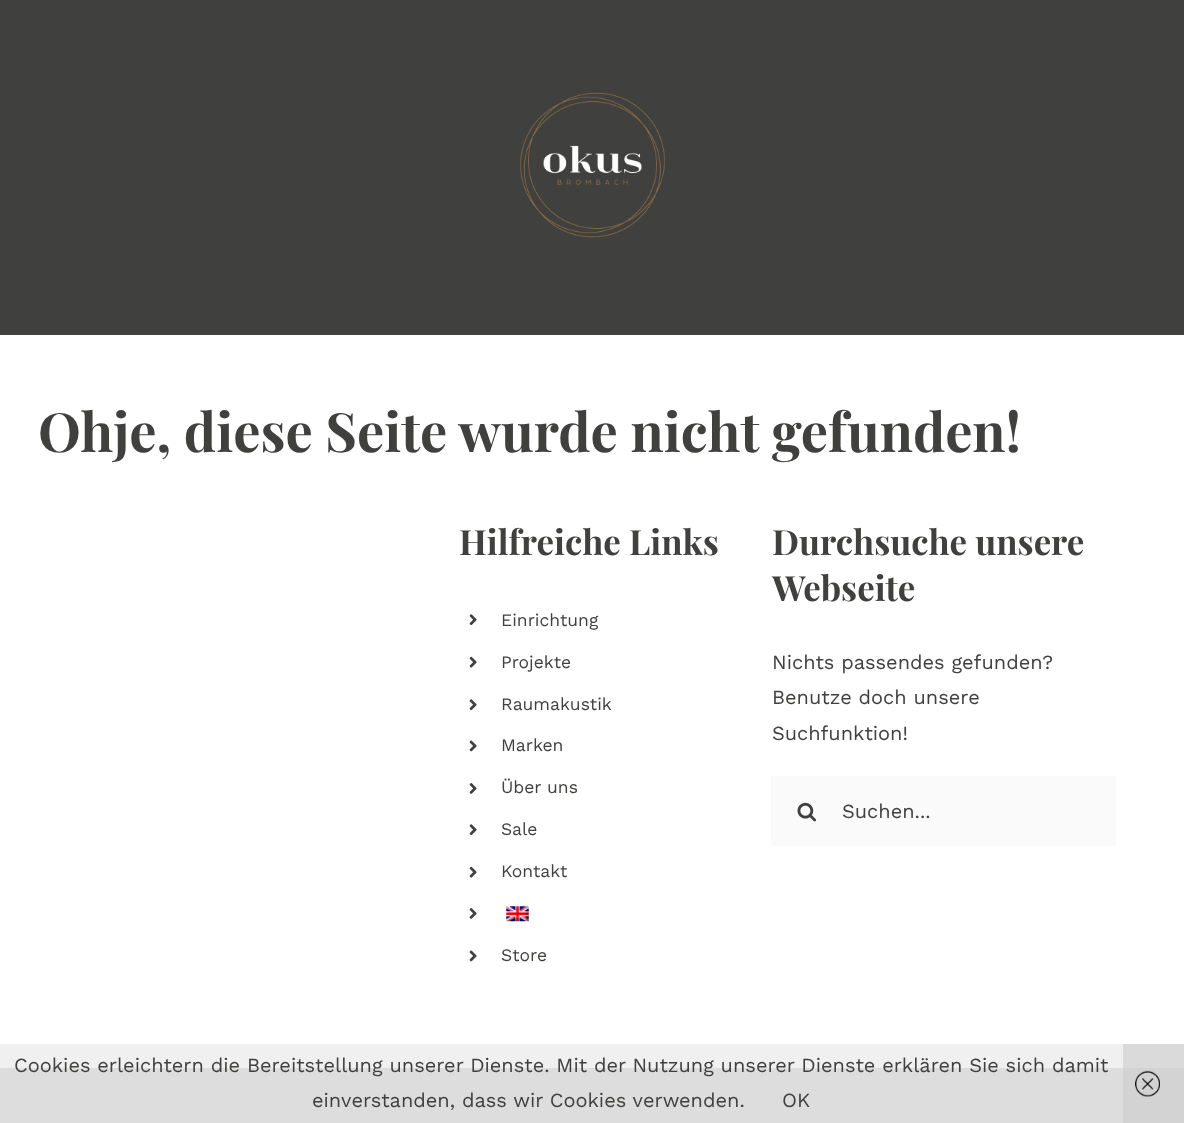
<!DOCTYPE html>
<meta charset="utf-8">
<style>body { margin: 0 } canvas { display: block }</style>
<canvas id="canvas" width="1184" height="1123"></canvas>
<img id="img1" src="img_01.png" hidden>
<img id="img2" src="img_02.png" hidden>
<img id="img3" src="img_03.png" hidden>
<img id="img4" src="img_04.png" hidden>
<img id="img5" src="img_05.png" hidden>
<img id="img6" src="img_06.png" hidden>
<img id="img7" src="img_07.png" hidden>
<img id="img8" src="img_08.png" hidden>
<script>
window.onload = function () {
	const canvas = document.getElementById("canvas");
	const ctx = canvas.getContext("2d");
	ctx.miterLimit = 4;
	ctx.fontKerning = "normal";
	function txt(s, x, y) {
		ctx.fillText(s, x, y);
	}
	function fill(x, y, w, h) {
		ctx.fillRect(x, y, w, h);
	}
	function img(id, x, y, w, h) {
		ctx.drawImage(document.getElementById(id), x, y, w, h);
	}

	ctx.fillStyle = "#FFFFFF";
	fill(0, 0, 1184, 1123);
	ctx.fillStyle = "#40403F";
	fill(0, 0, 1184, 335);
	img("img1", 520, 92, 145, 146);
	ctx.fillStyle = "#F0F0F0";
	fill(0, 1044, 1123, 24);
	ctx.fillStyle = "#DADADA";
	fill(1123, 1044, 61, 24);
	img("img2", 469, 614, 8, 12);
	img("img3", 469, 656, 8, 12);
	img("img2", 469, 699, 8, 12);
	img("img4", 469, 740, 8, 12);
	img("img5", 469, 783, 8, 11);
	img("img2", 469, 824, 8, 12);
	img("img3", 469, 866, 8, 12);
	img("img5", 469, 908, 8, 11);
	img("img6", 506, 906, 23, 16);
	img("img4", 469, 950, 8, 12);
	ctx.fillStyle = "#FAFAFA";
	fill(771, 776, 345, 70);
	img("img7", 797, 802, 19, 20);
	ctx.fillStyle = "#DDDDDD";
	fill(0, 1068, 1123, 55);
	ctx.fillStyle = "#D3D3D3";
	fill(1123, 1068, 61, 55);
	img("img8", 1135, 1070, 25, 27);
	ctx.font = "bold 54.1px Playfair Display";
	ctx.fillStyle = "#40403F";
	txt("Ohje, diese Seite wurde nicht gefunden!", 38, 452);
	ctx.font = "bold 34.75px Playfair Display";
	txt("Hilfreiche Links", 459, 555);
	ctx.font = "17.5px Work Sans";
	txt("Einrichtung", 501, 626);
	txt("Projekte", 501, 668);
	txt("Raumakustik", 501, 710);
	txt("Marken", 501, 751);
	txt("Über uns", 501, 793);
	txt("Sale", 501, 835);
	txt("Kontakt", 501, 877);
	txt("Store", 501, 961);
	ctx.font = "bold 34.75px Playfair Display";
	txt("Durchsuche unsere", 772, 555);
	txt("Webseite", 772, 601);
	ctx.font = "20px Work Sans";
	txt("Nichts passendes gefunden?", 772, 669);
	txt("Benutze doch unsere", 772, 704);
	txt("Suchfunktion!", 772, 740);
	txt("Suchen...", 842, 818);
	txt("Cookies erleichtern die Bereitstellung unserer Dienste. Mit der Nutzung unserer Dienste erklären Sie sich damit", 14, 1072);
	txt("einverstanden, dass wir Cookies verwenden.", 312, 1107);
	txt("OK", 782, 1107);
};
</script>
